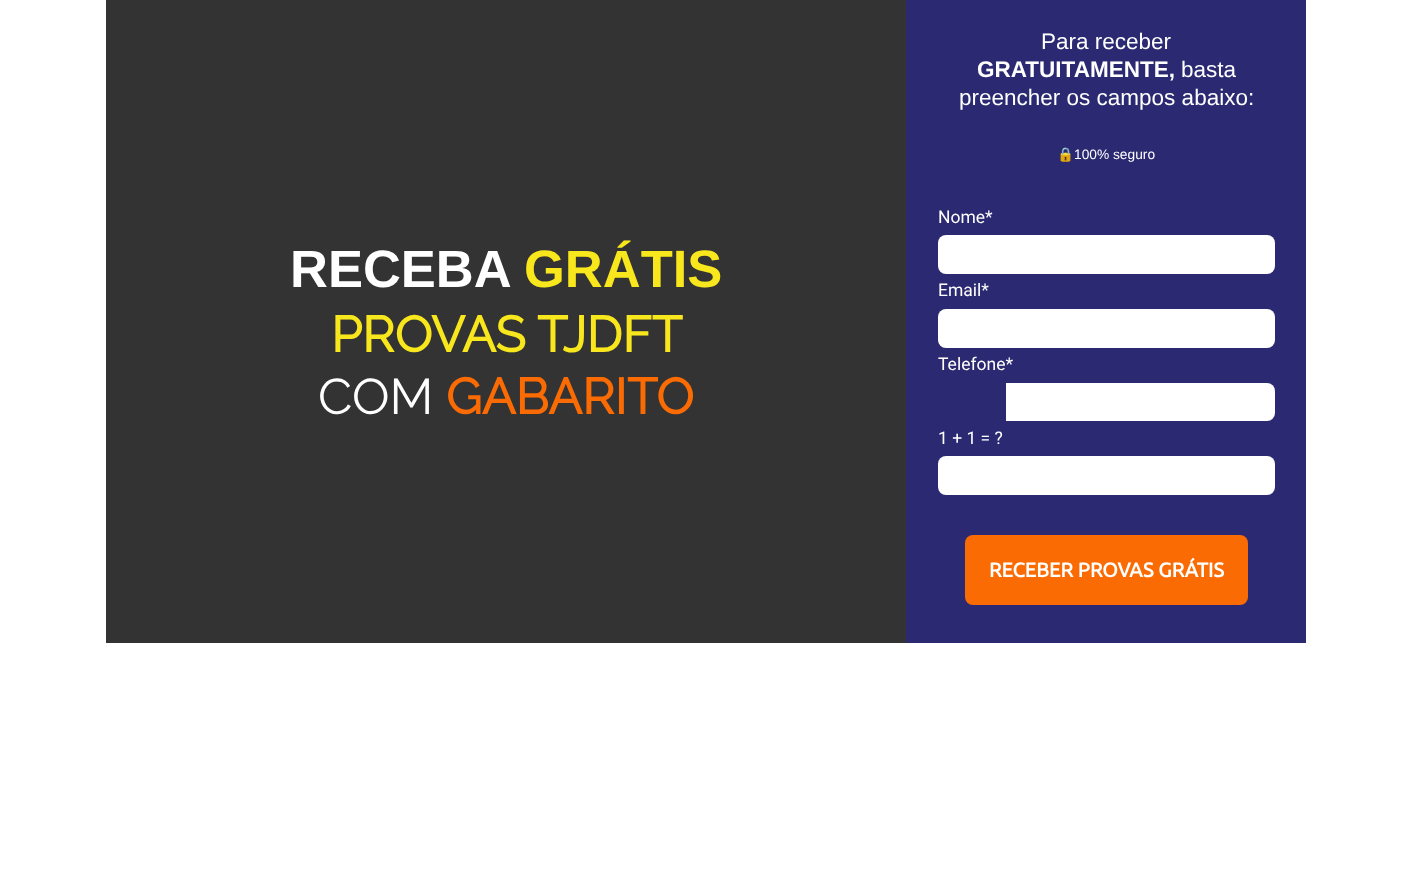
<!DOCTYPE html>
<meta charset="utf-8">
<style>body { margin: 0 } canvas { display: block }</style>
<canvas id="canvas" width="1412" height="885"></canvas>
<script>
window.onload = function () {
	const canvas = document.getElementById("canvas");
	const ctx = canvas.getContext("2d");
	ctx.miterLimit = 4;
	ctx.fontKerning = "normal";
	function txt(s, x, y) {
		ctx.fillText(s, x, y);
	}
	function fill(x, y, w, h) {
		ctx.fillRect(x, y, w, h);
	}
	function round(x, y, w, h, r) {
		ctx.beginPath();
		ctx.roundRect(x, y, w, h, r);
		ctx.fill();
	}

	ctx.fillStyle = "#FFFFFF";
	fill(0, 0, 1412, 885);
	ctx.fillStyle = "#343333";
	fill(106, 0, 800, 643);
	ctx.fillStyle = "#2A2971";
	fill(906, 0, 400, 643);
	ctx.fillStyle = "#FFFFFF";
	round(938, 235, 337, 39, 8);
	round(938, 309, 337, 39, 8);
	ctx.beginPath();
	ctx.roundRect(1006, 383, 269, 38, [0, 8, 8, 0]);
	ctx.fill();
	round(938, 456, 337, 39, 8);
	ctx.fillStyle = "#FB6B03";
	round(965, 535, 283, 70, 8);
	ctx.font = "bold 52.5px Liberation Sans";
	ctx.fillStyle = "#FFFFFF";
	txt("RECEBA", 290, 287);
	ctx.fillStyle = "#F8E71C";
	txt("GRÁTIS", 524, 287);
	ctx.font = "bold 50px Raleway";
	txt("PROVAS TJDFT", 331, 352);
	ctx.font = "100 50px Raleway";
	ctx.fillStyle = "#FFFFFF";
	txt("COM", 318, 414);
	ctx.font = "bold 50px Raleway";
	ctx.fillStyle = "#FB6B03";
	txt("GABARITO", 446, 414);
	ctx.font = "22.5px Liberation Sans";
	ctx.fillStyle = "#FFFFFF";
	txt("Para receber", 1041, 49);
	ctx.font = "bold 22.5px Liberation Sans";
	txt("GRATUITAMENTE,", 977, 77);
	ctx.font = "22.5px Liberation Sans";
	txt("basta", 1181, 77);
	txt("preencher os campos abaixo:", 959, 105);
	ctx.font = "13.75px Noto Color Emoji";
	txt("🔒", 1057, 159);
	ctx.font = "13.75px Liberation Sans";
	txt("100% seguro", 1074, 159);
	ctx.font = "17.5px Roboto";
	txt("Nome*", 938, 223);
	txt("Email*", 938, 296);
	txt("Telefone*", 938, 370);
	txt("1 + 1 = ?", 938, 444);
	ctx.font = "bold 20px Ubuntu";
	txt("RECEBER PROVAS GRÁTIS", 989, 577);
};
</script>
